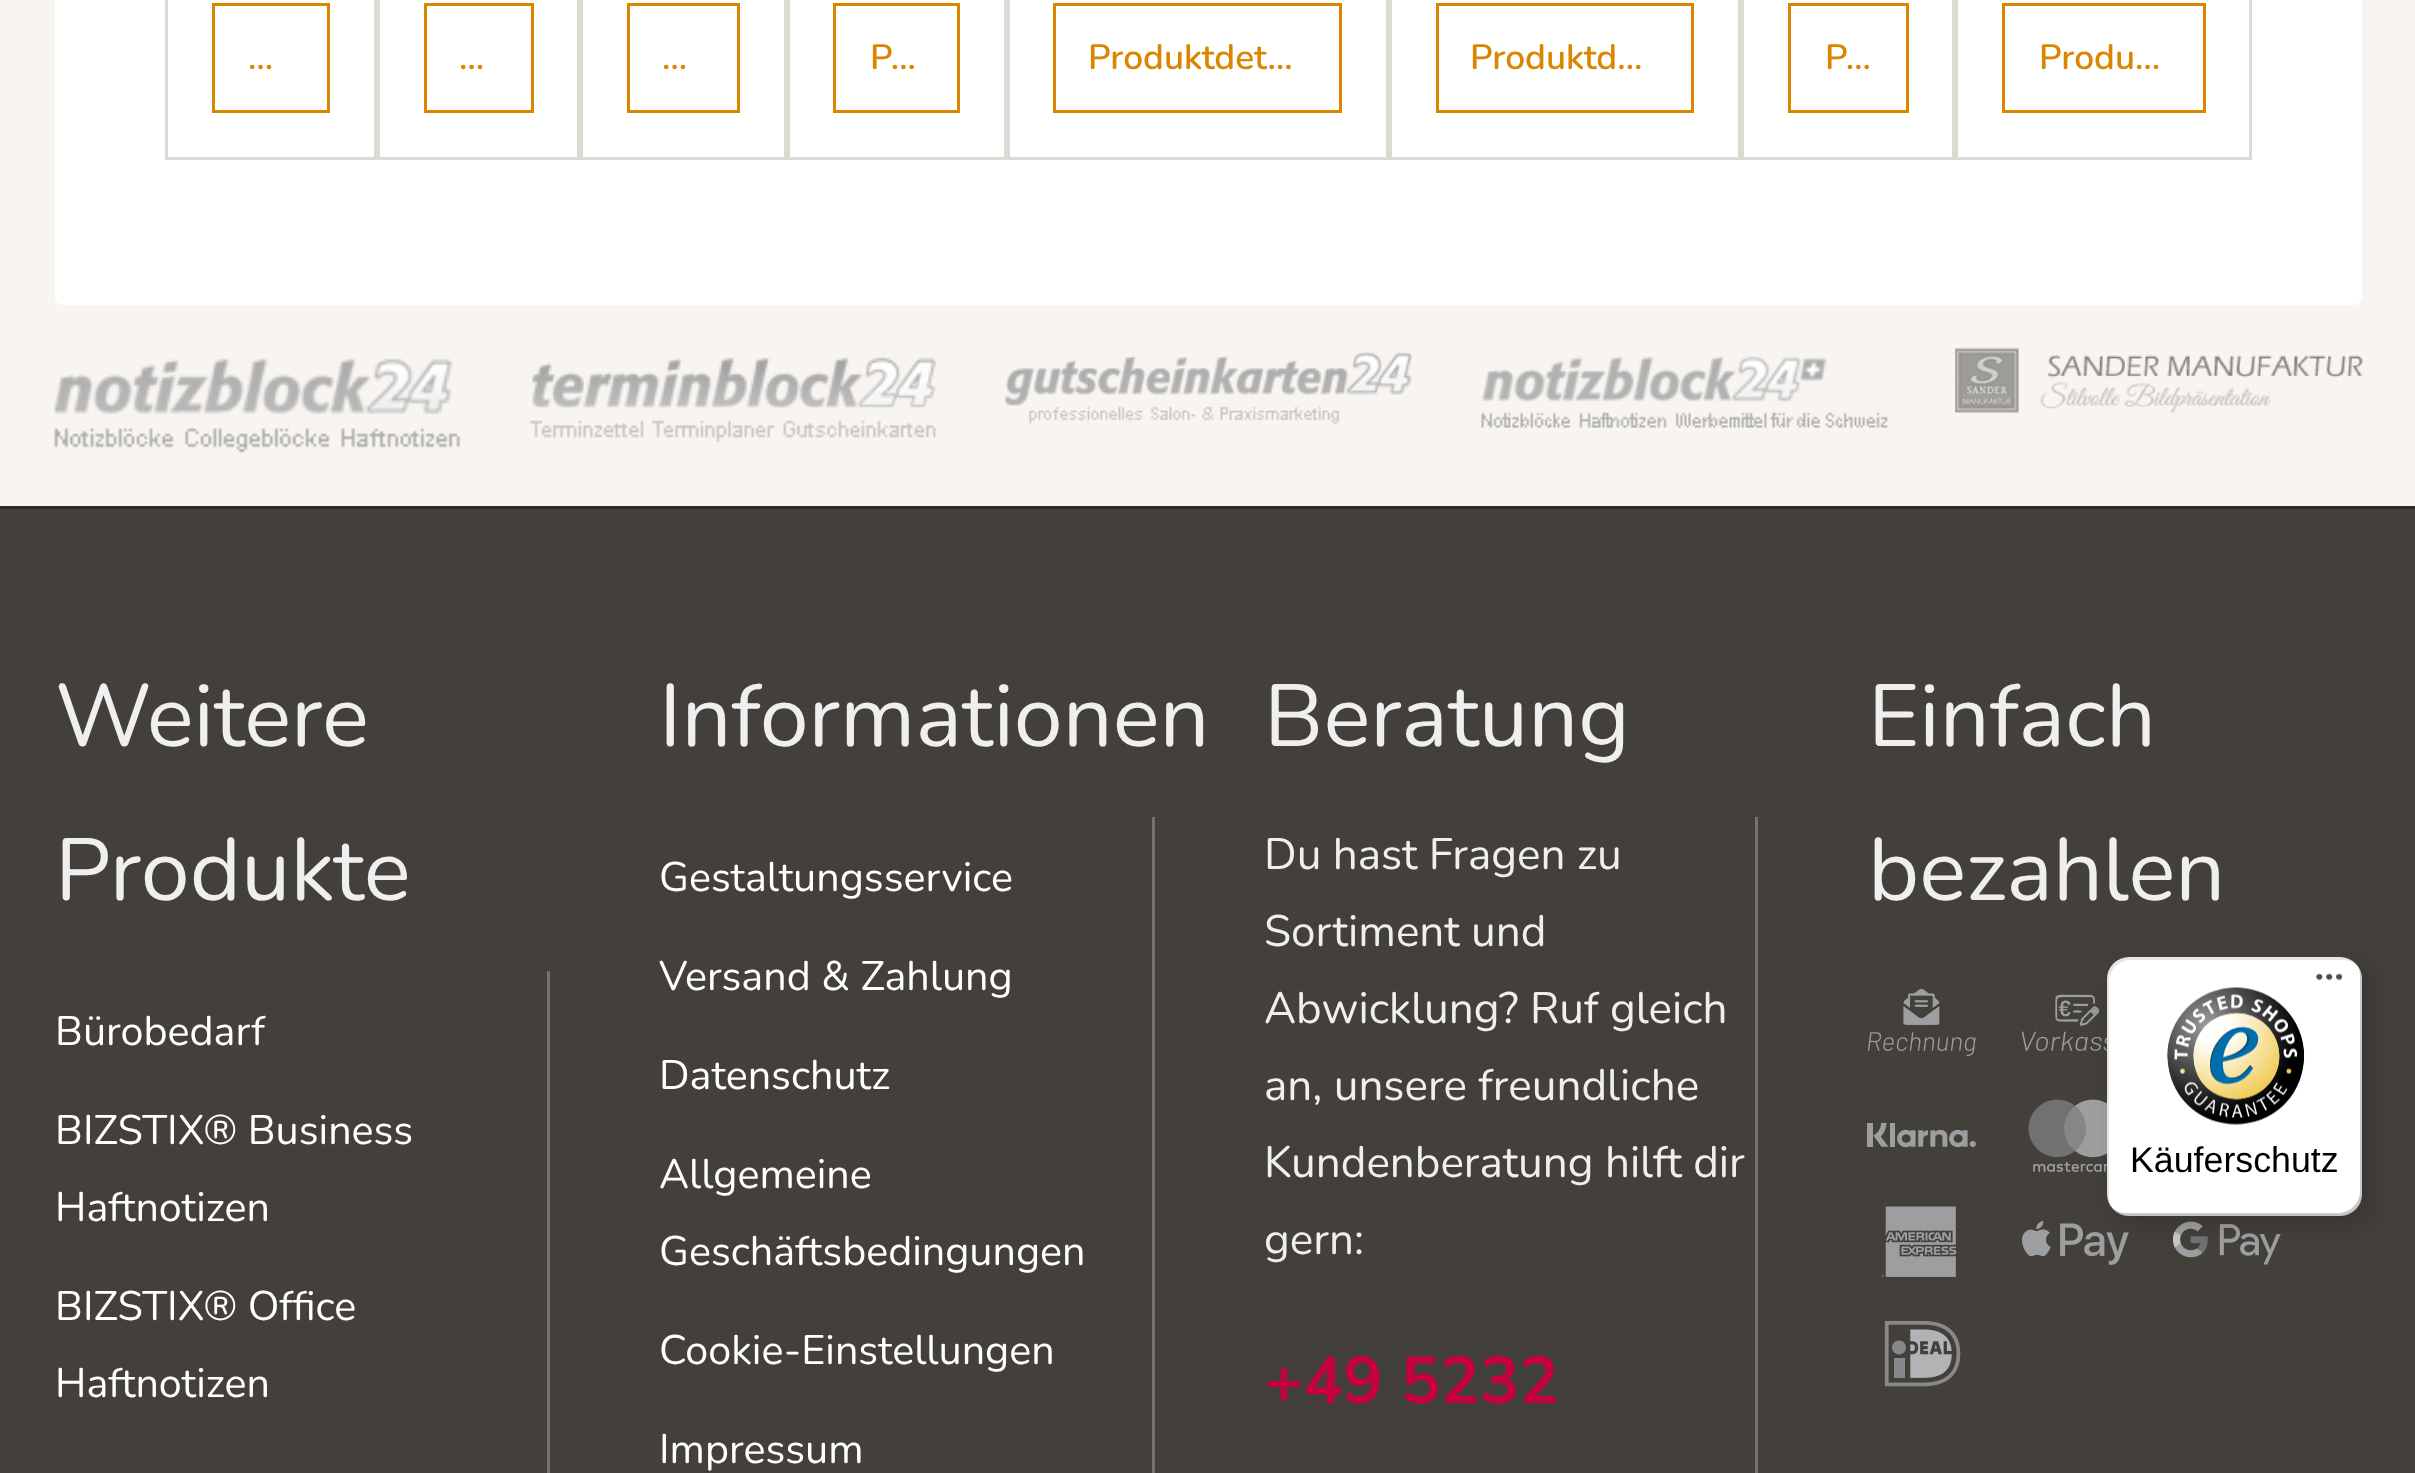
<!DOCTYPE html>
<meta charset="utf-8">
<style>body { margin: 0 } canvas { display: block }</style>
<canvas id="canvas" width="2415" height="1473"></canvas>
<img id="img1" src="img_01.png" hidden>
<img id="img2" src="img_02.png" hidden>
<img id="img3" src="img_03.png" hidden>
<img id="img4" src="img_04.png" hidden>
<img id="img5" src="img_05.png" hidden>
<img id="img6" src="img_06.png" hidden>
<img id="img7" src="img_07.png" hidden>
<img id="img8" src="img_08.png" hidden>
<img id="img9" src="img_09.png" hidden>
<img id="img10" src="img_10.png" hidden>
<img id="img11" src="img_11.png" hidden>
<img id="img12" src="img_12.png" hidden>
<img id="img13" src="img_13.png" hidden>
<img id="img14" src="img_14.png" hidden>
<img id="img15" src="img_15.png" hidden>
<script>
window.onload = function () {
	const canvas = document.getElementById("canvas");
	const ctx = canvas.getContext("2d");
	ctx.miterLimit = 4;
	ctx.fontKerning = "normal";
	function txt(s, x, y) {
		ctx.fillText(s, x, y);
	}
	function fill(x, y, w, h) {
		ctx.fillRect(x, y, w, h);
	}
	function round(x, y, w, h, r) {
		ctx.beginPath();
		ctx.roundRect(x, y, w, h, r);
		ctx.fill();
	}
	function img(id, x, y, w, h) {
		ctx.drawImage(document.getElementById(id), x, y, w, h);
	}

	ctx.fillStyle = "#F8F5F1";
	fill(0, 0, 2415, 1473);
	ctx.fillStyle = "#FFFFFF";
	ctx.beginPath();
	ctx.moveTo(55, -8);
	ctx.lineTo(2362, -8);
	ctx.lineTo(2362, 297);
	ctx.bezierCurveTo(2362, 301.5, 2358.5, 305, 2354, 305);
	ctx.lineTo(63, 305);
	ctx.bezierCurveTo(58.5, 305, 55, 301.5, 55, 297);
	ctx.closePath();
	ctx.fill();
	ctx.strokeStyle = "#DDD9D3";
	ctx.lineWidth = 3;
	ctx.strokeRect(166.5, -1.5, 209, 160);
	ctx.strokeStyle = "#DB8600";
	ctx.strokeRect(213.5, 4.5, 115, 107);
	ctx.strokeStyle = "#DDD9D3";
	ctx.strokeRect(378.5, -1.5, 200, 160);
	ctx.strokeStyle = "#DB8600";
	ctx.strokeRect(425.5, 4.5, 107, 107);
	ctx.strokeStyle = "#DDD9D3";
	ctx.strokeRect(581.5, -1.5, 204, 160);
	ctx.strokeStyle = "#DB8600";
	ctx.strokeRect(628.5, 4.5, 110, 107);
	ctx.strokeStyle = "#DDD9D3";
	ctx.strokeRect(788.5, -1.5, 217, 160);
	ctx.strokeStyle = "#DB8600";
	ctx.strokeRect(834.5, 4.5, 124, 107);
	ctx.strokeStyle = "#DDD9D3";
	ctx.strokeRect(1008.5, -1.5, 379, 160);
	ctx.strokeStyle = "#DB8600";
	ctx.strokeRect(1054.5, 4.5, 286, 107);
	ctx.strokeStyle = "#DDD9D3";
	ctx.strokeRect(1390.5, -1.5, 349, 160);
	ctx.strokeStyle = "#DB8600";
	ctx.strokeRect(1437.5, 4.5, 255, 107);
	ctx.strokeStyle = "#DDD9D3";
	ctx.strokeRect(1742.5, -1.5, 211, 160);
	ctx.strokeStyle = "#DB8600";
	ctx.strokeRect(1789.5, 4.5, 118, 107);
	ctx.strokeStyle = "#DDD9D3";
	ctx.strokeRect(1956.5, -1.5, 294, 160);
	ctx.strokeStyle = "#DB8600";
	ctx.strokeRect(2003.5, 4.5, 201, 107);
	img("img1", 54, 358, 407, 95);
	img("img2", 529, 357, 407, 86);
	img("img3", 1005, 351, 407, 73);
	img("img4", 1481, 356, 407, 72);
	img("img5", 1955, 347, 408, 66);
	ctx.fillStyle = "#433F3A";
	fill(0, 509, 2415, 964);
	ctx.fillStyle = "#2F2923";
	fill(0, 506, 2415, 3);
	ctx.fillStyle = "#7A7269";
	fill(547, 971, 3, 502);
	fill(1152, 817, 3, 656);
	fill(1755, 817, 3, 656);
	img("img6", 1868, 988, 108, 68);
	img("img7", 2021, 994, 86, 57);
	img("img8", 1867, 1122, 109, 26);
	img("img9", 2028, 1099, 79, 73);
	img("img10", 1881, 1206, 76, 72);
	img("img11", 2022, 1221, 107, 44);
	img("img12", 2173, 1221, 108, 44);
	img("img13", 1884, 1320, 77, 67);
	ctx.fillStyle = "rgba(0, 0, 0, 0.15)";
	ctx.filter = "blur(11px)";
	ctx.beginPath();
	ctx.roundRect(2115, 965, 256, 259, 22);
	ctx.fill();
	ctx.filter = "none";
	ctx.fillStyle = "#FFFFFF";
	round(2107, 957, 255, 259, 22);
	ctx.fillStyle = "rgba(0, 0, 0, 0.1)";
	ctx.beginPath();
	ctx.moveTo(2131, 960);
	ctx.lineTo(2343, 960);
	ctx.bezierCurveTo(2348, 960, 2353, 962, 2357, 965);
	ctx.bezierCurveTo(2353, 960, 2347, 957, 2340, 957);
	ctx.lineTo(2129, 957);
	ctx.bezierCurveTo(2117, 957, 2107, 967, 2107, 979);
	ctx.lineTo(2107, 1194);
	ctx.bezierCurveTo(2107, 1201, 2110, 1207, 2115, 1211);
	ctx.bezierCurveTo(2111, 1207, 2109, 1202, 2109, 1196);
	ctx.lineTo(2109, 982);
	ctx.bezierCurveTo(2109, 970, 2119, 960, 2131, 960);
	ctx.closePath();
	ctx.fill();
	ctx.fillStyle = "rgba(0, 0, 0, 0.2)";
	ctx.beginPath();
	ctx.moveTo(2112, 1208);
	ctx.bezierCurveTo(2116, 1213, 2122, 1216, 2129, 1216);
	ctx.lineTo(2340, 1216);
	ctx.bezierCurveTo(2352, 1216, 2362, 1206, 2362, 1194);
	ctx.lineTo(2362, 979);
	ctx.bezierCurveTo(2362, 974, 2360, 969, 2357, 965);
	ctx.bezierCurveTo(2359, 968, 2360, 972, 2360, 976);
	ctx.lineTo(2360, 1191);
	ctx.bezierCurveTo(2360, 1203, 2350, 1213, 2338, 1213);
	ctx.lineTo(2126, 1213);
	ctx.bezierCurveTo(2121, 1213, 2116, 1211, 2112, 1208);
	ctx.closePath();
	ctx.fill();
	ctx.fillStyle = "rgba(50, 50, 50, 0.2)";
	ctx.beginPath();
	ctx.moveTo(2112, 1208);
	ctx.bezierCurveTo(2116, 1213, 2122, 1216, 2129, 1216);
	ctx.lineTo(2340, 1216);
	ctx.bezierCurveTo(2352, 1216, 2362, 1206, 2362, 1194);
	ctx.lineTo(2362, 979);
	ctx.bezierCurveTo(2362, 975, 2361, 971, 2359, 968);
	ctx.bezierCurveTo(2360, 971, 2361, 974, 2361, 977);
	ctx.lineTo(2361, 1192);
	ctx.bezierCurveTo(2361, 1204, 2351, 1214, 2339, 1214);
	ctx.lineTo(2127, 1214);
	ctx.bezierCurveTo(2121, 1214, 2116, 1212, 2112, 1208);
	ctx.closePath();
	ctx.fill();
	ctx.fillStyle = "rgba(255, 255, 255, 0.3)";
	ctx.beginPath();
	ctx.moveTo(2112, 1208);
	ctx.bezierCurveTo(2116, 1213, 2122, 1216, 2129, 1216);
	ctx.lineTo(2340, 1216);
	ctx.bezierCurveTo(2352, 1216, 2362, 1206, 2362, 1194);
	ctx.lineTo(2362, 979);
	ctx.bezierCurveTo(2362, 974, 2360, 969, 2357, 965);
	ctx.bezierCurveTo(2360, 969, 2361, 973, 2361, 978);
	ctx.lineTo(2361, 1192);
	ctx.bezierCurveTo(2361, 1204, 2351, 1214, 2339, 1214);
	ctx.lineTo(2127, 1214);
	ctx.bezierCurveTo(2121, 1214, 2116, 1212, 2112, 1208);
	ctx.closePath();
	ctx.fill();
	img("img14", 2316, 973, 27, 8);
	img("img15", 2167, 987, 138, 138);
	ctx.font = "600 35.25px Nunito";
	ctx.fillStyle = "#DB8600";
	txt("…", 248, 69);
	txt("…", 459, 69);
	txt("…", 662, 69);
	txt("P…", 870, 69);
	txt("Produktdet…", 1088, 69);
	txt("Produktd…", 1470, 69);
	txt("P…", 1825, 69);
	txt("Produ…", 2039, 69);
	ctx.font = "88px Nunito";
	ctx.fillStyle = "#EFEFEF";
	txt("Weitere", 55, 746);
	txt("Produkte", 55, 900);
	ctx.font = "41.25px Nunito";
	ctx.fillStyle = "#FFFFFF";
	txt("Bürobedarf", 55, 1045);
	txt("BIZSTIX® Business", 55, 1144);
	txt("Haftnotizen", 55, 1221);
	txt("BIZSTIX® Office", 55, 1320);
	txt("Haftnotizen", 55, 1397);
	ctx.font = "88px Nunito";
	ctx.fillStyle = "#EFEFEF";
	txt("Informationen", 659, 746);
	ctx.font = "41.25px Nunito";
	ctx.fillStyle = "#FFFFFF";
	txt("Gestaltungsservice", 659, 891);
	txt("Versand & Zahlung", 659, 990);
	txt("Datenschutz", 659, 1089);
	txt("Allgemeine", 659, 1188);
	txt("Geschäftsbedingungen", 659, 1265);
	txt("Cookie-Einstellungen", 659, 1364);
	txt("Impressum", 659, 1463);
	ctx.font = "88px Nunito";
	ctx.fillStyle = "#EFEFEF";
	txt("Beratung", 1264, 746);
	ctx.font = "44px Nunito";
	txt("Du hast Fragen zu", 1264, 869);
	txt("Sortiment und", 1264, 946);
	txt("Abwicklung? Ruf gleich", 1264, 1023);
	txt("an, unsere freundliche", 1264, 1100);
	txt("Kundenberatung hilft dir", 1264, 1177);
	txt("gern:", 1264, 1254);
	ctx.font = "bold 66px Nunito";
	ctx.fillStyle = "#C7003F";
	txt("+49 5232", 1264, 1403);
	ctx.font = "88px Nunito";
	ctx.fillStyle = "#EFEFEF";
	txt("Einfach", 1868, 746);
	txt("bezahlen", 1868, 900);
	ctx.font = "35.75px Liberation Sans";
	ctx.fillStyle = "#000000";
	txt("Käuferschutz", 2130, 1172);
};
</script>
